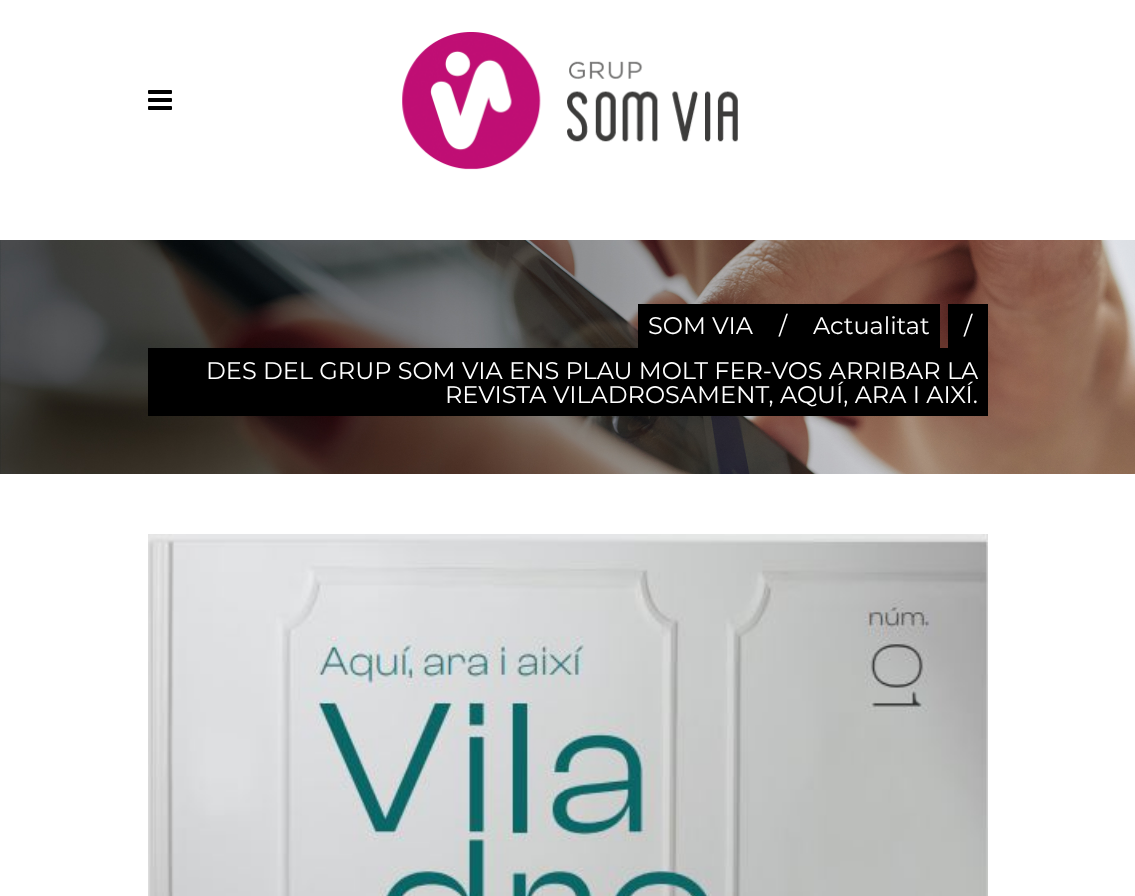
<!DOCTYPE html>
<meta charset="utf-8">
<style>body { margin: 0 } canvas { display: block }</style>
<canvas id="canvas" width="1135" height="896"></canvas>
<img id="img1" src="img_01.png" hidden>
<img id="img2" src="img_02.png" hidden>
<img id="img3" src="img_03.png" hidden>
<img id="img4" src="img_04.png" hidden>
<script>
window.onload = function () {
	const canvas = document.getElementById("canvas");
	const ctx = canvas.getContext("2d");
	ctx.miterLimit = 4;
	ctx.fontKerning = "normal";
	function txt(s, x, y) {
		ctx.fillText(s, x, y);
	}
	function fill(x, y, w, h) {
		ctx.fillRect(x, y, w, h);
	}
	function img(id, x, y, w, h) {
		ctx.drawImage(document.getElementById(id), x, y, w, h);
	}

	ctx.fillStyle = "#FFFFFF";
	fill(0, 0, 1135, 896);
	img("img1", 148, 90, 24, 20);
	img("img2", 402, 32, 336, 138);
	img("img3", 0, 240, 1135, 234);
	ctx.fillStyle = "#000000";
	fill(638, 304, 302, 44);
	fill(948, 304, 40, 44);
	fill(148, 348, 840, 68);
	img("img4", 148, 534, 840, 362);
	ctx.font = "24px Montserrat";
	ctx.fillStyle = "#FFFFFF";
	txt("SOM VIA", 648, 334);
	txt("/", 779, 334);
	txt("Actualitat", 813, 334);
	txt("/", 964, 334);
	txt("DES DEL GRUP SOM VIA ENS PLAU MOLT FER-VOS ARRIBAR LA", 206, 379);
	txt("REVISTA VILADROSAMENT, AQUÍ, ARA I AIXÍ.", 445, 403);
};
</script>
